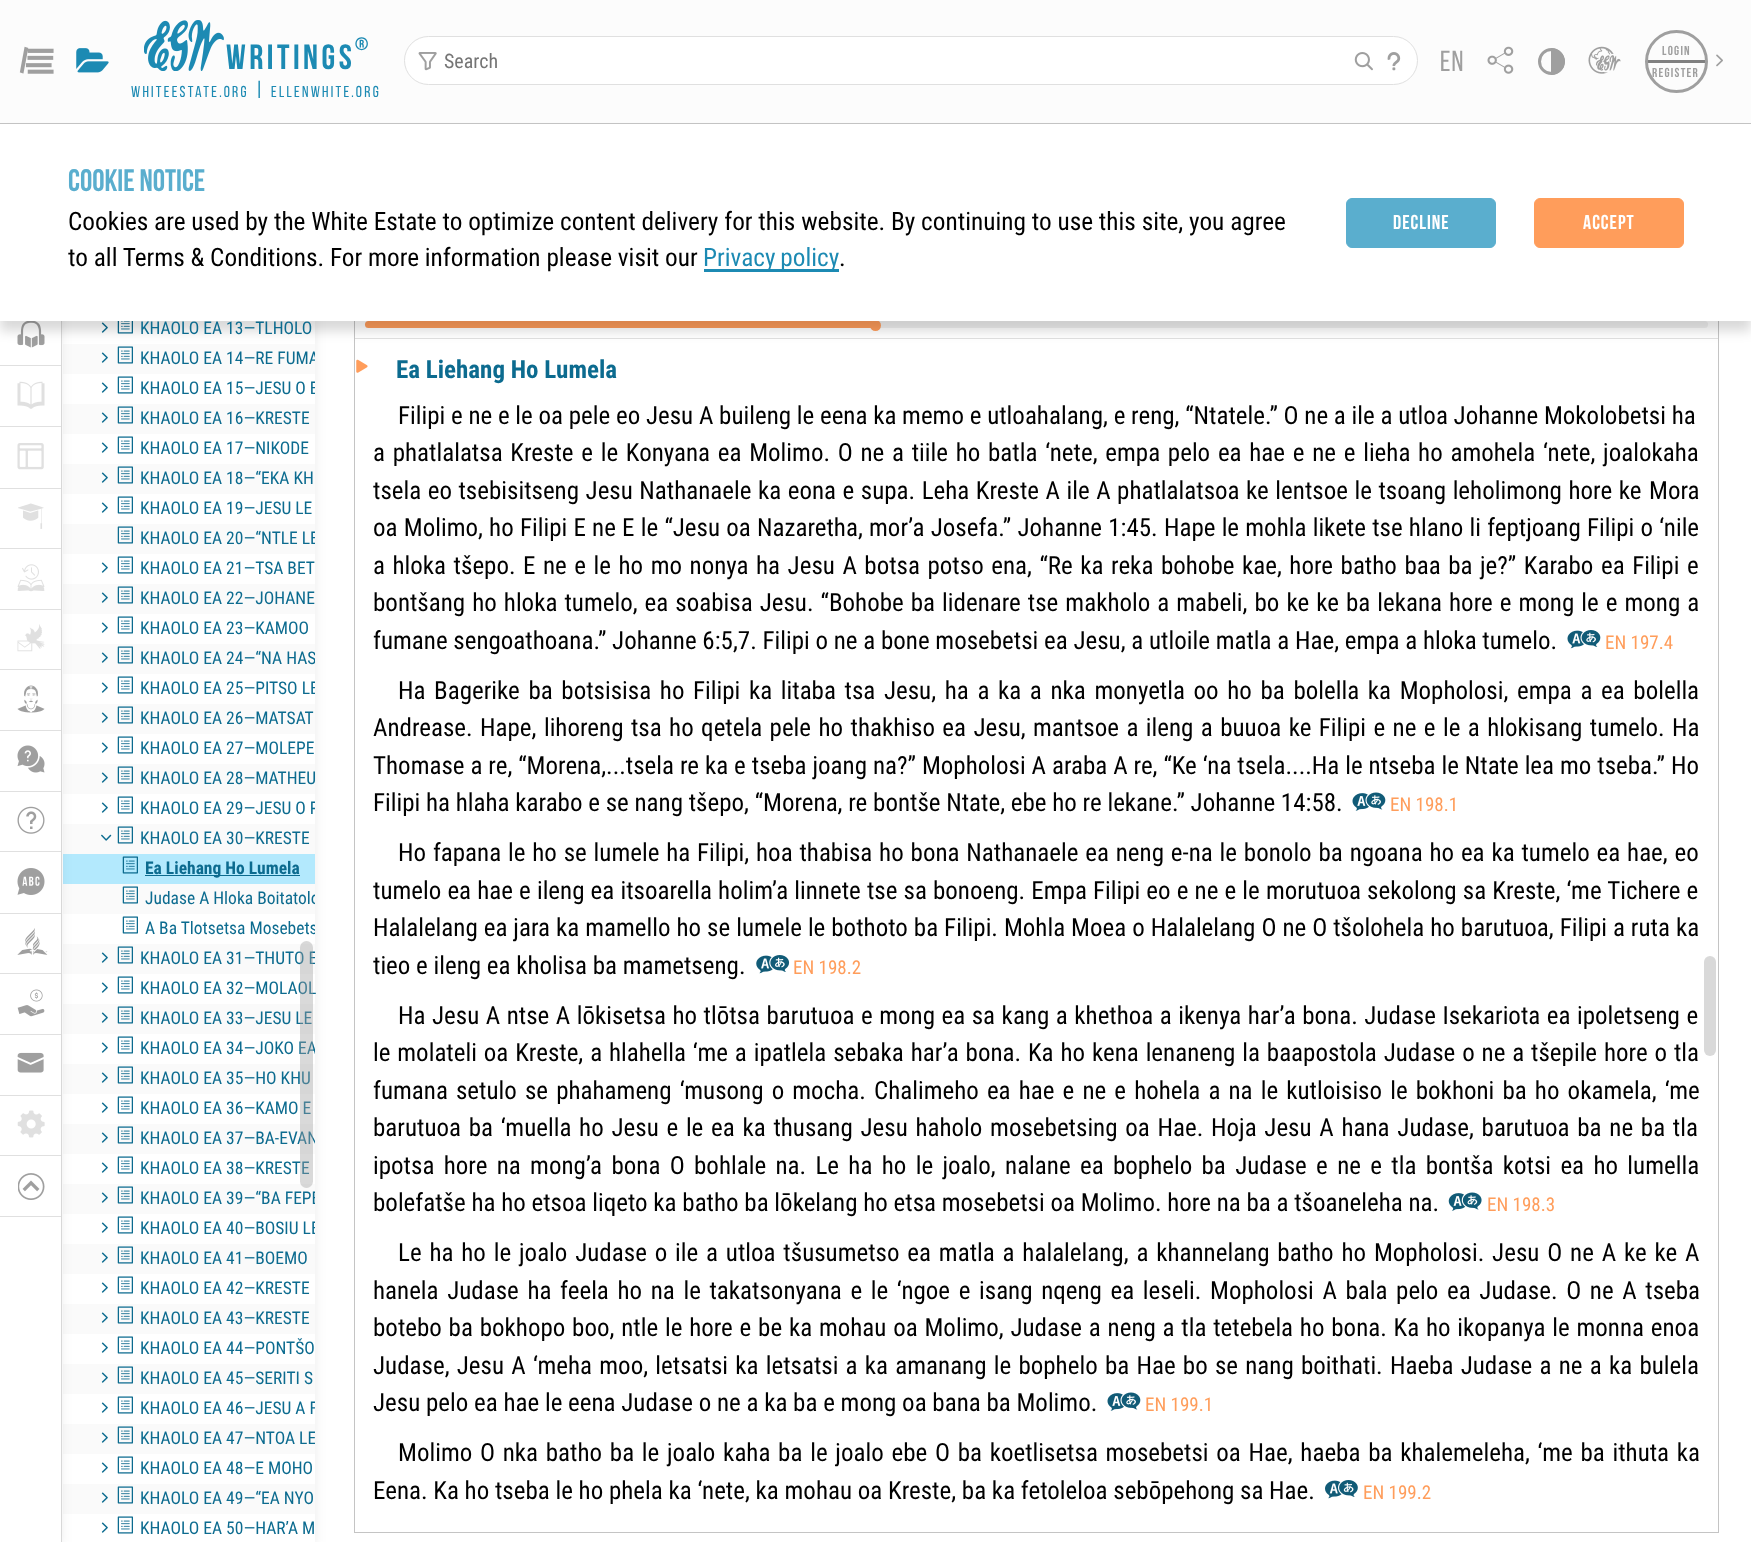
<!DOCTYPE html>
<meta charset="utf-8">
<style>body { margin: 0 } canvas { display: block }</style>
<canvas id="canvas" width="1751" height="1542"></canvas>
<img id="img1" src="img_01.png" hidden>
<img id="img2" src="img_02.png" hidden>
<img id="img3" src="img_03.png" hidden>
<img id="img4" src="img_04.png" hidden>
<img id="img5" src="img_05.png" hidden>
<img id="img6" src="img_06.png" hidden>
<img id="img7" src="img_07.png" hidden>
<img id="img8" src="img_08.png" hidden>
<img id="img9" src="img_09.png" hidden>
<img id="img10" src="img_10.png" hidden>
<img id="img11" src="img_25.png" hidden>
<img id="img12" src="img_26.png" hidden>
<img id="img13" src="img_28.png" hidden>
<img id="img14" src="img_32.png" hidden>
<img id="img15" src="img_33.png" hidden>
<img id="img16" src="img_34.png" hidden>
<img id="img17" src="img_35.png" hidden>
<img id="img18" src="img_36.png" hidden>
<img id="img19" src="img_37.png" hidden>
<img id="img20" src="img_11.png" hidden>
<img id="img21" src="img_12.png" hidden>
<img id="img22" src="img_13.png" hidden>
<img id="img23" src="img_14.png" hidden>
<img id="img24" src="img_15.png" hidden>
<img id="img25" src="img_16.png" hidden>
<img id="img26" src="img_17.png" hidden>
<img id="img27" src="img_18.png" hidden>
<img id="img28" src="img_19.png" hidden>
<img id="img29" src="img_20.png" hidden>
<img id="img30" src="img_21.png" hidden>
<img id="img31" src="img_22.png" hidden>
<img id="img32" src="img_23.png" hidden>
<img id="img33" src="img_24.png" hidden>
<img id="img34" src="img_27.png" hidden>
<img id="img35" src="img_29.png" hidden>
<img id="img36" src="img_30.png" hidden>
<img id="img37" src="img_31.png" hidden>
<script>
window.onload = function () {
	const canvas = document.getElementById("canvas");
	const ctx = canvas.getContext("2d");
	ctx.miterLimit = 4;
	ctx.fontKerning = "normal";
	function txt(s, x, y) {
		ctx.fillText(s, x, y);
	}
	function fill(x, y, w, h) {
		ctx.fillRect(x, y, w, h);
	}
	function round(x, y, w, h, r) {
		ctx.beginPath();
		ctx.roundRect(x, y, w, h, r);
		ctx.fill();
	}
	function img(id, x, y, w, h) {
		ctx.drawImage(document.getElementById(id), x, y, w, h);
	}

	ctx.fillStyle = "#FFFFFF";
	fill(0, 0, 1751, 1542);
	ctx.fillStyle = "rgba(0, 0, 0, 0.08)";
	ctx.filter = "blur(6px)";
	ctx.beginPath();
	ctx.rect(61, 126, 254, 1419);
	ctx.fill();
	ctx.filter = "none";
	ctx.fillStyle = "#FFFFFF";
	fill(62, 321, 253, 1221);
	ctx.fillStyle = "#E0E0E0";
	fill(61, 321, 1, 1221);
	ctx.fillStyle = "#FAFAFA";
	fill(63, 344, 252, 30);
	fill(63, 404, 252, 30);
	fill(63, 464, 252, 30);
	fill(63, 524, 252, 30);
	fill(63, 584, 252, 30);
	fill(63, 644, 252, 30);
	fill(63, 704, 252, 30);
	fill(63, 764, 252, 30);
	fill(63, 824, 252, 30);
	ctx.fillStyle = "#B3E9FD";
	fill(63, 854, 252, 30);
	ctx.fillStyle = "#FAFAFA";
	fill(63, 884, 252, 30);
	fill(63, 944, 252, 30);
	fill(63, 1004, 252, 30);
	fill(63, 1064, 252, 30);
	fill(63, 1124, 252, 30);
	fill(63, 1184, 252, 30);
	fill(63, 1244, 252, 30);
	fill(63, 1304, 252, 30);
	fill(63, 1364, 252, 30);
	fill(63, 1424, 252, 30);
	fill(63, 1484, 252, 30);
	ctx.fillStyle = "rgba(0, 0, 0, 0.08)";
	ctx.filter = "blur(6px)";
	ctx.beginPath();
	ctx.rect(0, 126, 61, 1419);
	ctx.fill();
	ctx.filter = "none";
	ctx.fillStyle = "#FCFCFC";
	fill(0, 0, 1751, 123);
	ctx.fillStyle = "#C4C4C4";
	fill(0, 123, 1751, 1);
	img("img1", 19, 46, 35, 28);
	img("img2", 76, 48, 33, 25);
	img("img3", 144, 20, 80, 51);
	ctx.fillStyle = "#FFFFFF";
	ctx.beginPath();
	ctx.roundRect(404.5, 36.5, 1013, 48, 24);
	ctx.fill();
	ctx.strokeStyle = "#E0E0E0";
	ctx.stroke();
	img("img4", 418, 52, 19, 19);
	img("img5", 1354, 52, 19, 19);
	img("img6", 1387, 52, 14, 19);
	img("img7", 1487, 46, 27, 28);
	ctx.beginPath();
	ctx.arc(1551.5, 61.5, 12, 0, Math.PI * 2);
	ctx.strokeStyle = "#9F9F9F";
	ctx.lineWidth = 3;
	ctx.stroke();
	ctx.save();
	ctx.beginPath();
	ctx.roundRect(1538, 48, 27, 27, 13.5);
	ctx.clip();
	ctx.fillStyle = "#9F9F9F";
	ctx.beginPath();
	ctx.roundRect(1551, 48, 14, 27, [0, 13.5, 13.5, 0]);
	ctx.fill();
	ctx.restore();
	img("img8", 1588, 46, 33, 28);
	ctx.fillStyle = "#808080";
	fill(1648, 60, 57, 3);
	ctx.beginPath();
	ctx.arc(1676.5, 61.5, 30, 0, Math.PI * 2);
	ctx.stroke();
	img("img9", 1716, 54, 7, 13);
	ctx.fillStyle = "#FFFFFF";
	fill(0, 321, 61, 1221);
	img("img10", 17, 321, 28, 27);
	img("img11", 101, 322, 7, 11);
	img("img12", 117, 321, 16, 13);
	img("img13", 117, 346, 16, 18);
	ctx.fillStyle = "#E0E0E0";
	fill(354, 338, 1365, 1);
	ctx.fillStyle = "#F1F1F1";
	round(365, 321, 1343, 7, 3.5);
	ctx.fillStyle = "#FF9D5B";
	round(365, 321, 510, 7, 3.5);
	ctx.beginPath();
	ctx.arc(875.5, 325.5, 5.5, 0, Math.PI * 2);
	ctx.fill();
	img("img14", 356, 359, 12, 14);
	img("img15", 1567, 630, 34, 19);
	img("img16", 1352, 792, 34, 19);
	img("img17", 756, 955, 34, 19);
	img("img18", 1448, 1192, 34, 19);
	img("img16", 1107, 1392, 34, 19);
	img("img19", 1325, 1480, 33, 19);
	ctx.fillStyle = "#D9D9D9";
	round(1704, 956, 12, 100, 6);
	ctx.strokeStyle = "#C4C4C4";
	ctx.lineWidth = 1;
	ctx.strokeRect(354.5, 224.5, 1364, 1308);
	ctx.fillStyle = "rgba(0, 0, 0, 0.15)";
	ctx.filter = "blur(6px)";
	ctx.beginPath();
	ctx.rect(0, 134, 1751, 197);
	ctx.fill();
	ctx.filter = "none";
	ctx.fillStyle = "#FFFFFF";
	fill(0, 124, 1751, 197);
	ctx.fillStyle = "#1C8AB3";
	fill(704, 269, 135, 3);
	ctx.fillStyle = "#5AAECE";
	ctx.beginPath();
	ctx.roundRect(1346.5, 198.5, 149, 49, 5.5);
	ctx.fill();
	ctx.strokeStyle = "#5AAECE";
	ctx.stroke();
	ctx.fillStyle = "#FF9D5B";
	ctx.beginPath();
	ctx.roundRect(1534.5, 198.5, 149, 49, 5.5);
	ctx.fill();
	ctx.strokeStyle = "#FF9D5B";
	ctx.stroke();
	ctx.fillStyle = "#E0E0E0";
	fill(0, 365, 61, 1);
	fill(0, 426, 61, 1);
	img("img20", 17, 381, 28, 28);
	fill(0, 488, 61, 1);
	img("img21", 17, 443, 27, 27);
	fill(0, 548, 61, 1);
	img("img22", 18, 503, 26, 26);
	fill(0, 609, 61, 1);
	img("img23", 17, 564, 28, 28);
	fill(0, 669, 61, 1);
	img("img24", 17, 624, 28, 28);
	fill(0, 730, 61, 1);
	img("img25", 17, 685, 28, 28);
	fill(0, 791, 61, 1);
	img("img26", 17, 745, 28, 28);
	fill(0, 851, 61, 1);
	img("img27", 17, 806, 28, 28);
	fill(0, 913, 61, 1);
	img("img28", 17, 868, 28, 27);
	fill(0, 973, 61, 1);
	img("img29", 17, 928, 31, 27);
	fill(0, 1034, 61, 1);
	img("img30", 17, 989, 28, 28);
	fill(0, 1095, 61, 1);
	img("img31", 17, 1052, 27, 21);
	fill(0, 1155, 61, 1);
	img("img32", 17, 1110, 28, 28);
	fill(0, 1216, 61, 1);
	img("img33", 18, 1173, 27, 27);
	img("img34", 101, 352, 7, 11);
	img("img11", 101, 382, 7, 11);
	img("img35", 117, 376, 16, 18);
	img("img34", 101, 412, 7, 11);
	img("img13", 117, 406, 16, 18);
	img("img11", 101, 442, 7, 11);
	img("img35", 117, 436, 16, 18);
	img("img34", 101, 472, 7, 11);
	img("img13", 117, 466, 16, 18);
	img("img11", 101, 502, 7, 11);
	img("img35", 117, 496, 16, 18);
	img("img13", 117, 526, 16, 18);
	img("img11", 101, 562, 7, 11);
	img("img35", 117, 556, 16, 18);
	img("img34", 101, 592, 7, 11);
	img("img13", 117, 586, 16, 18);
	img("img11", 101, 622, 7, 11);
	img("img35", 117, 616, 16, 18);
	img("img34", 101, 652, 7, 11);
	img("img13", 117, 646, 16, 18);
	img("img11", 101, 682, 7, 11);
	img("img35", 117, 676, 16, 18);
	img("img34", 101, 712, 7, 11);
	img("img13", 117, 706, 16, 18);
	img("img11", 101, 742, 7, 11);
	img("img35", 117, 736, 16, 18);
	img("img34", 101, 772, 7, 11);
	img("img13", 117, 766, 16, 18);
	img("img11", 101, 802, 7, 11);
	img("img35", 117, 796, 16, 18);
	img("img36", 101, 834, 11, 7);
	img("img13", 117, 826, 16, 18);
	img("img37", 122, 856, 16, 18);
	ctx.fillStyle = "#0C6B8F";
	fill(145, 875, 155, 1);
	img("img13", 122, 886, 16, 18);
	img("img35", 122, 916, 16, 18);
	img("img34", 101, 952, 7, 11);
	img("img13", 117, 946, 16, 18);
	img("img11", 101, 982, 7, 11);
	img("img35", 117, 976, 16, 18);
	img("img34", 101, 1012, 7, 11);
	img("img13", 117, 1006, 16, 18);
	img("img11", 101, 1042, 7, 11);
	img("img35", 117, 1036, 16, 18);
	img("img34", 101, 1072, 7, 11);
	img("img13", 117, 1066, 16, 18);
	img("img11", 101, 1102, 7, 11);
	img("img35", 117, 1096, 16, 18);
	img("img34", 101, 1132, 7, 11);
	img("img13", 117, 1126, 16, 18);
	img("img11", 101, 1162, 7, 11);
	img("img35", 117, 1156, 16, 18);
	img("img34", 101, 1192, 7, 11);
	img("img13", 117, 1186, 16, 18);
	img("img11", 101, 1222, 7, 11);
	img("img35", 117, 1216, 16, 18);
	img("img34", 101, 1252, 7, 11);
	img("img13", 117, 1246, 16, 18);
	img("img11", 101, 1282, 7, 11);
	img("img35", 117, 1276, 16, 18);
	img("img34", 101, 1312, 7, 11);
	img("img13", 117, 1306, 16, 18);
	img("img11", 101, 1342, 7, 11);
	img("img35", 117, 1336, 16, 18);
	img("img34", 101, 1372, 7, 11);
	img("img13", 117, 1366, 16, 18);
	img("img11", 101, 1402, 7, 11);
	img("img35", 117, 1396, 16, 18);
	img("img34", 101, 1432, 7, 11);
	img("img13", 117, 1426, 16, 18);
	img("img11", 101, 1462, 7, 11);
	img("img35", 117, 1456, 16, 18);
	img("img34", 101, 1492, 7, 11);
	img("img13", 117, 1486, 16, 18);
	img("img11", 101, 1522, 7, 11);
	img("img35", 117, 1516, 16, 18);
	ctx.letterSpacing = "3.5px";
	ctx.font = "bold 35px Bebas Neue";
	ctx.fillStyle = "#1C8AB3";
	txt("writings", 226, 69);
	ctx.letterSpacing = "2px";
	ctx.font = "bold 18px Bebas Neue";
	txt("®", 355, 50);
	ctx.letterSpacing = "2.25px";
	ctx.font = "15.75px Bebas Neue";
	txt("whiteestate.org", 131, 97);
	ctx.font = "22px Bebas Neue";
	txt("|", 255, 97);
	ctx.font = "15.75px Bebas Neue";
	txt("ellenwhite.org", 271, 97);
	ctx.letterSpacing = "0px";
	ctx.font = "20px Roboto Condensed";
	ctx.fillStyle = "#757575";
	txt("Search", 444, 68);
	ctx.letterSpacing = "1px";
	ctx.font = "29px Bebas Neue";
	ctx.fillStyle = "#9F9F9F";
	txt("en", 1440, 71);
	ctx.letterSpacing = "1.25px";
	ctx.font = "bold 13px Bebas Neue";
	txt("logIn", 1662, 55);
	txt("Register", 1652, 77);
	ctx.letterSpacing = "0px";
	ctx.font = "bold 31px Bebas Neue";
	ctx.fillStyle = "#5AAECE";
	txt("Cookie Notice", 68, 191);
	ctx.font = "25.3px Roboto Condensed";
	ctx.fillStyle = "#000000";
	txt("Cookies are used by the White Estate to optimize content delivery for this website. By continuing to use this site, you agree", 68, 230);
	txt("to all Terms & Conditions. For more information please visit our", 68, 266);
	ctx.wordSpacing = "-1px";
	ctx.fillStyle = "#1C8AB3";
	txt("Privacy policy", 703, 266);
	ctx.wordSpacing = "0px";
	ctx.fillStyle = "#000000";
	txt(".", 839, 266);
	ctx.letterSpacing = "1px";
	ctx.font = "bold 20px Bebas Neue";
	ctx.fillStyle = "#FFFFFF";
	txt("Decline", 1393, 229);
	txt("Accept", 1583, 229);
	ctx.letterSpacing = "0px";
	ctx.font = "17.5px Roboto Condensed";
	ctx.fillStyle = "#0C6B8F";
	txt("KHAOLO EA 13—TLHOLO", 140, 334);
	ctx.save();
	ctx.beginPath();
	ctx.rect(63, 344, 252, 30);
	ctx.clip();
	txt("KHAOLO EA 14—RE FUMA", 140, 364);
	ctx.restore();
	ctx.save();
	ctx.beginPath();
	ctx.rect(63, 374, 252, 30);
	ctx.clip();
	txt("KHAOLO EA 15—JESU O E", 140, 394);
	ctx.restore();
	txt("KHAOLO EA 16—KRESTE", 140, 424);
	txt("KHAOLO EA 17—NIKODE", 140, 454);
	txt("KHAOLO EA 18—“EKA KH", 140, 484);
	txt("KHAOLO EA 19—JESU LE", 140, 514);
	ctx.save();
	ctx.beginPath();
	ctx.rect(63, 524, 252, 30);
	ctx.clip();
	txt("KHAOLO EA 20—“NTLE LE", 140, 544);
	ctx.restore();
	txt("KHAOLO EA 21—TSA BET", 140, 574);
	txt("KHAOLO EA 22—JOHANE", 140, 604);
	txt("KHAOLO EA 23—KAMOO", 140, 634);
	ctx.save();
	ctx.beginPath();
	ctx.rect(63, 644, 252, 30);
	ctx.clip();
	txt("KHAOLO EA 24—“NA HAS", 140, 664);
	ctx.restore();
	ctx.save();
	ctx.beginPath();
	ctx.rect(63, 674, 252, 30);
	ctx.clip();
	txt("KHAOLO EA 25—PITSO LE", 140, 694);
	ctx.restore();
	txt("KHAOLO EA 26—MATSAT", 140, 724);
	txt("KHAOLO EA 27—MOLEPE", 140, 754);
	txt("KHAOLO EA 28—MATHEU", 140, 784);
	ctx.save();
	ctx.beginPath();
	ctx.rect(63, 794, 252, 30);
	ctx.clip();
	txt("KHAOLO EA 29—JESU O P", 140, 814);
	ctx.restore();
	txt("KHAOLO EA 30—KRESTE", 140, 844);
	ctx.font = "bold 17.5px Roboto Condensed";
	txt("Ea Liehang Ho Lumela", 145, 874);
	ctx.save();
	ctx.beginPath();
	ctx.rect(63, 884, 252, 30);
	ctx.clip();
	ctx.font = "17.5px Roboto Condensed";
	txt("Judase A Hloka Boitatolo", 145, 904);
	ctx.restore();
	ctx.save();
	ctx.beginPath();
	ctx.rect(63, 914, 252, 30);
	ctx.clip();
	ctx.font = "17.5px Roboto Condensed";
	txt("A Ba Tlotsetsa Mosebets", 145, 934);
	ctx.restore();
	ctx.save();
	ctx.beginPath();
	ctx.rect(63, 944, 252, 30);
	ctx.clip();
	ctx.font = "17.5px Roboto Condensed";
	txt("KHAOLO EA 31—THUTO E", 140, 964);
	ctx.restore();
	ctx.font = "17.5px Roboto Condensed";
	txt("KHAOLO EA 32—MOLAOL", 140, 994);
	txt("KHAOLO EA 33—JESU LE", 140, 1024);
	ctx.save();
	ctx.beginPath();
	ctx.rect(63, 1034, 252, 30);
	ctx.clip();
	txt("KHAOLO EA 34—JOKO EA", 140, 1054);
	ctx.restore();
	txt("KHAOLO EA 35—HO KHU", 140, 1084);
	txt("KHAOLO EA 36—KAMO E", 140, 1114);
	ctx.save();
	ctx.beginPath();
	ctx.rect(63, 1124, 252, 30);
	ctx.clip();
	txt("KHAOLO EA 37—BA-EVAN", 140, 1144);
	ctx.restore();
	txt("KHAOLO EA 38—KRESTE", 140, 1174);
	ctx.save();
	ctx.beginPath();
	ctx.rect(63, 1184, 252, 30);
	ctx.clip();
	txt("KHAOLO EA 39—“BA FEPE", 140, 1204);
	ctx.restore();
	ctx.save();
	ctx.beginPath();
	ctx.rect(63, 1214, 252, 30);
	ctx.clip();
	txt("KHAOLO EA 40—BOSIU LE", 140, 1234);
	ctx.restore();
	txt("KHAOLO EA 41—BOEMO", 140, 1264);
	txt("KHAOLO EA 42—KRESTE", 140, 1294);
	txt("KHAOLO EA 43—KRESTE", 140, 1324);
	txt("KHAOLO EA 44—PONTŠO", 140, 1354);
	txt("KHAOLO EA 45—SERITI S", 140, 1384);
	ctx.save();
	ctx.beginPath();
	ctx.rect(63, 1394, 252, 30);
	ctx.clip();
	txt("KHAOLO EA 46—JESU A F", 140, 1414);
	ctx.restore();
	ctx.save();
	ctx.beginPath();
	ctx.rect(63, 1424, 252, 30);
	ctx.clip();
	txt("KHAOLO EA 47—NTOA LE", 140, 1444);
	ctx.restore();
	txt("KHAOLO EA 48—E MOHO", 140, 1474);
	txt("KHAOLO EA 49—“EA NYO", 140, 1504);
	txt("KHAOLO EA 50—HAR’A M", 140, 1534);
	ctx.fillStyle = "rgba(159, 159, 159, 0.4)";
	round(300, 941, 13, 247, 6.5);
	ctx.font = "bold 25px Roboto Condensed";
	ctx.fillStyle = "#0C6B8F";
	txt("Ea Liehang Ho Lumela", 396, 378);
	ctx.font = "25px Roboto Condensed";
	ctx.fillStyle = "#000000";
	txt("Filipi e ne e le oa pele eo Jesu A buileng le eena ka memo e utloahalang, e reng, “Ntatele.” O ne a ile a utloa Johanne Mokolobetsi ha", 398, 424);
	ctx.wordSpacing = "2px";
	txt("a phatlalatsa Kreste e le Konyana ea Molimo. O ne a tiile ho batla ‘nete, empa pelo ea hae e ne e lieha ho amohela ‘nete, joalokaha", 373, 461);
	ctx.wordSpacing = "0.8px";
	txt("tsela eo tsebisitseng Jesu Nathanaele ka eona e supa. Leha Kreste A ile A phatlalatsoa ke lentsoe le tsoang leholimong hore ke", 373, 499);
	ctx.wordSpacing = "0px";
	txt("Mora", 1649, 499);
	ctx.wordSpacing = "0.5px";
	txt("oa Molimo, ho Filipi E ne E le “Jesu oa Nazaretha, mor’a Josefa.” Johanne 1:45. Hape le mohla likete tse hlano li feptjoang Filipi o ‘nile", 373, 536);
	ctx.wordSpacing = "1.8px";
	txt("a hloka tšepo. E ne e le ho mo nonya ha Jesu A botsa potso ena, “Re ka reka bohobe kae, hore batho baa ba je?” Karabo ea Filipi e", 373, 574);
	ctx.wordSpacing = "1.3px";
	txt("bontšang ho hloka tumelo, ea soabisa Jesu. “Bohobe ba lidenare tse makholo a mabeli, bo ke ke ba lekana hore e mong le e mong a", 373, 611);
	ctx.wordSpacing = "0px";
	txt("fumane sengoathoana.” Johanne 6:5,7. Filipi o ne a bone mosebetsi ea Jesu, a utloile matla a Hae, empa a hloka tumelo.", 373, 649);
	ctx.font = "19px Roboto Condensed";
	ctx.fillStyle = "#FF9D5B";
	txt("EN 197.4", 1605, 649);
	ctx.wordSpacing = "2.9px";
	ctx.font = "25px Roboto Condensed";
	ctx.fillStyle = "#000000";
	txt("Ha Bagerike ba botsisisa ho Filipi ka litaba tsa Jesu, ha a ka a nka monyetla oo ho ba bolella ka Mopholosi, empa a ea bolella", 398, 699);
	ctx.wordSpacing = "1.7px";
	txt("Andrease. Hape, lihoreng tsa ho qetela pele ho thakhiso ea Jesu, mantsoe a ileng a buuoa ke Filipi e ne e le a hlokisang tumelo. Ha", 373, 736);
	ctx.wordSpacing = "0.2px";
	txt("Thomase a re, “Morena,...tsela re ka e tseba joang na?” Mopholosi A araba A re, “Ke ‘na tsela....Ha le ntseba le Ntate lea mo tseba.” Ho", 373, 774);
	ctx.wordSpacing = "0px";
	txt("Filipi ha hlaha karabo e se nang tšepo, “Morena, re bontše Ntate, ebe ho re lekane.” Johanne 14:58.", 373, 811);
	ctx.font = "19px Roboto Condensed";
	ctx.fillStyle = "#FF9D5B";
	txt("EN 198.1", 1390, 811);
	ctx.wordSpacing = "1.1px";
	ctx.font = "25px Roboto Condensed";
	ctx.fillStyle = "#000000";
	txt("Ho fapana le ho se lumele ha Filipi, hoa thabisa ho bona Nathanaele ea neng e-na le bonolo ba ngoana ho ea ka tumelo ea hae, eo", 398, 861);
	ctx.wordSpacing = "0.4px";
	txt("tumelo ea hae e ileng ea itsoarella holim’a linnete tse sa bonoeng. Empa Filipi eo e ne e le morutuoa sekolong sa Kreste, ‘me Tichere e", 373, 899);
	ctx.wordSpacing = "0.25px";
	txt("Halalelang ea jara ka mamello ho se lumele le bothoto ba Filipi. Mohla Moea o Halalelang O ne O tšolohela ho barutuoa, Filipi a ruta ka", 373, 936);
	ctx.wordSpacing = "0px";
	txt("tieo e ileng ea kholisa ba mametseng.", 373, 974);
	ctx.font = "19px Roboto Condensed";
	ctx.fillStyle = "#FF9D5B";
	txt("EN 198.2", 793, 974);
	ctx.wordSpacing = "0.8px";
	ctx.font = "25px Roboto Condensed";
	ctx.fillStyle = "#000000";
	txt("Ha Jesu A ntse A lōkisetsa ho tlōtsa barutuoa e mong ea sa kang a khethoa a ikenya har’a bona. Judase Isekariota ea ipoletseng e", 398, 1024);
	ctx.wordSpacing = "1.15px";
	txt("le molateli oa Kreste, a hlahella ‘me a ipatlela sebaka har’a bona. Ka ho kena lenaneng la baapostola Judase o ne a tšepile hore o tla", 373, 1061);
	ctx.wordSpacing = "2.4px";
	txt("fumana setulo se phahameng ‘musong o mocha. Chalimeho ea hae e ne e hohela a na le kutloisiso le bokhoni ba ho okamela, ‘me", 373, 1099);
	ctx.wordSpacing = "2px";
	txt("barutuoa ba ‘muella ho Jesu e le ea ka thusang Jesu haholo mosebetsing oa Hae. Hoja Jesu A hana Judase, barutuoa ba ne ba tla", 373, 1136);
	ctx.wordSpacing = "3.6px";
	txt("ipotsa hore na mong’a bona O bohlale na. Le ha ho le joalo, nalane ea bophelo ba Judase e ne e tla bontša kotsi ea ho lumella", 373, 1174);
	ctx.wordSpacing = "0px";
	txt("bolefatše ha ho etsoa liqeto ka batho ba lōkelang ho etsa mosebetsi oa Molimo. hore na ba a tšoaneleha na.", 373, 1211);
	ctx.font = "19px Roboto Condensed";
	ctx.fillStyle = "#FF9D5B";
	txt("EN 198.3", 1487, 1211);
	ctx.wordSpacing = "2.1px";
	ctx.font = "25px Roboto Condensed";
	ctx.fillStyle = "#000000";
	txt("Le ha ho le joalo Judase o ile a utloa tšusumetso ea matla a halalelang, a khannelang batho ho Mopholosi. Jesu O ne A ke ke A", 398, 1261);
	ctx.wordSpacing = "2.9px";
	txt("hanela Judase ha feela ho na le takatsonyana e le ‘ngoe e isang nqeng ea leseli. Mopholosi A bala pelo ea Judase. O ne A tseba", 373, 1299);
	ctx.wordSpacing = "1.05px";
	txt("botebo ba bokhopo boo, ntle le hore e be ka mohau oa Molimo, Judase a neng a tla tetebela ho bona. Ka ho ikopanya le monna enoa", 373, 1336);
	ctx.wordSpacing = "1.5px";
	txt("Judase, Jesu A ‘meha moo, letsatsi ka letsatsi a ka amanang le bophelo ba Hae bo se nang boithati. Haeba Judase a ne a ka bulela", 373, 1374);
	ctx.wordSpacing = "0px";
	txt("Jesu pelo ea hae le eena Judase o ne a ka ba e mong oa bana ba Molimo.", 373, 1411);
	ctx.font = "19px Roboto Condensed";
	ctx.fillStyle = "#FF9D5B";
	txt("EN 199.1", 1145, 1411);
	ctx.wordSpacing = "2px";
	ctx.font = "25px Roboto Condensed";
	ctx.fillStyle = "#000000";
	txt("Molimo O nka batho ba le joalo kaha ba le joalo ebe O ba koetlisetsa mosebetsi oa Hae, haeba ba khalemeleha, ‘me ba ithuta ka", 398, 1461);
	ctx.wordSpacing = "0px";
	txt("Eena. Ka ho tseba le ho phela ka ‘nete, ka mohau oa Kreste, ba ka fetoleloa sebōpehong sa Hae.", 373, 1499);
	ctx.font = "19px Roboto Condensed";
	ctx.fillStyle = "#FF9D5B";
	txt("EN 199.2", 1363, 1499);
};
</script>
